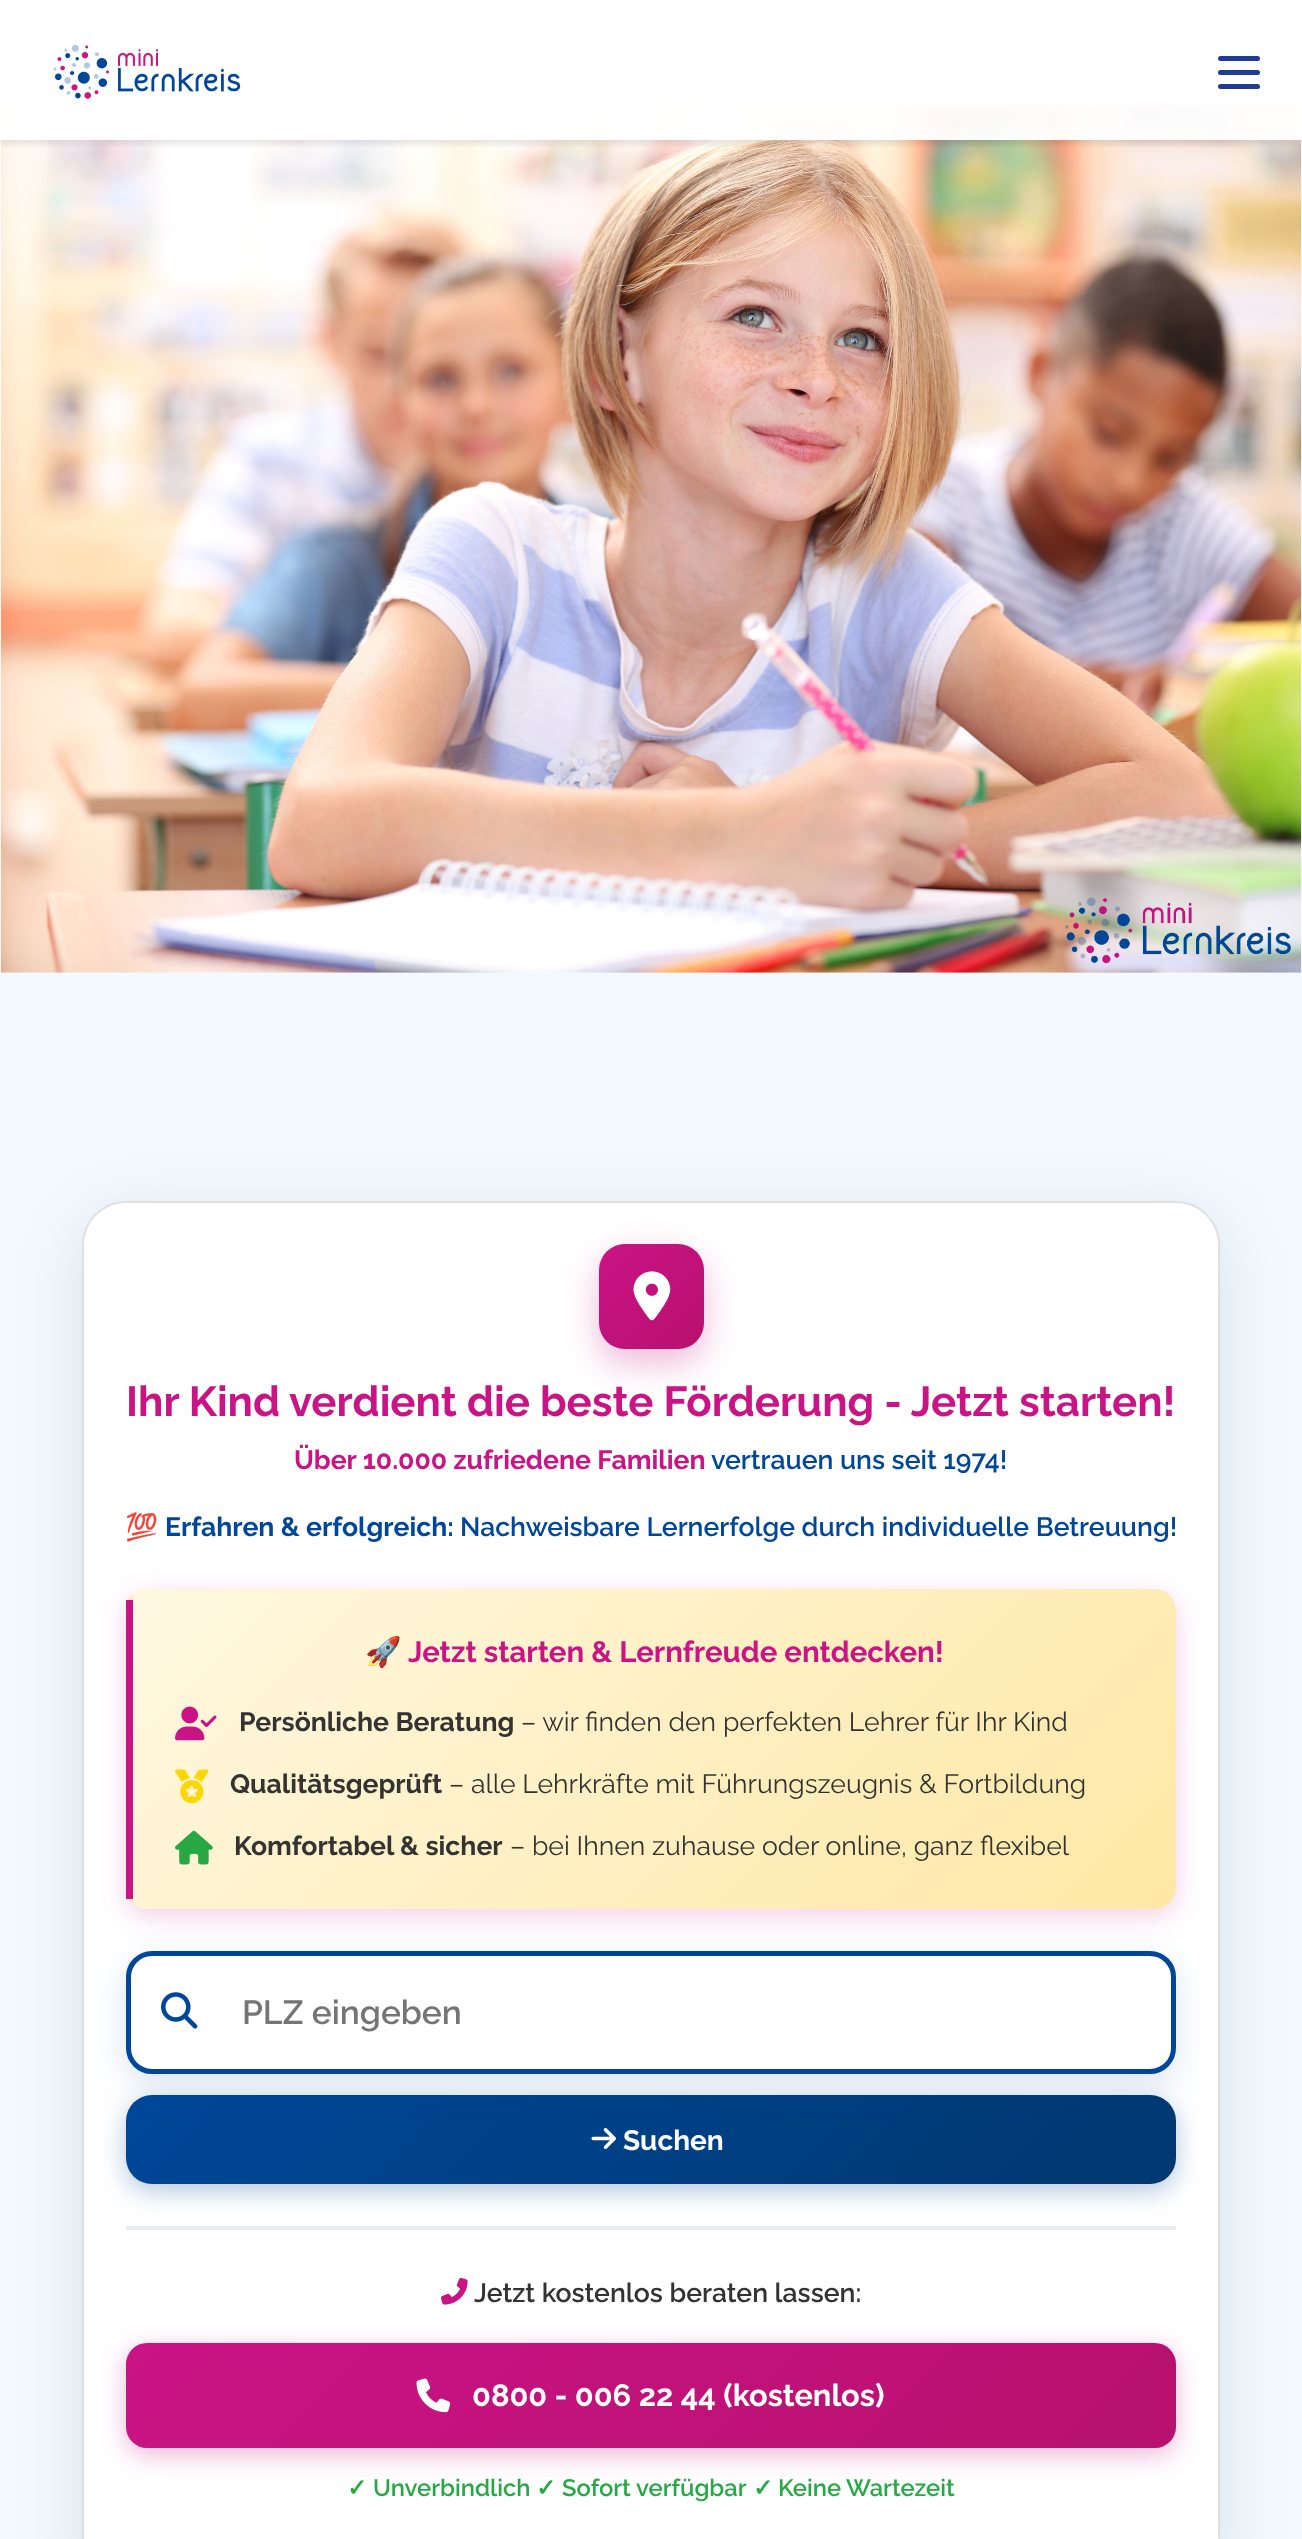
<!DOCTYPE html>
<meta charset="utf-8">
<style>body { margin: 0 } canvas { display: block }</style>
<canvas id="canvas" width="1302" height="2539"></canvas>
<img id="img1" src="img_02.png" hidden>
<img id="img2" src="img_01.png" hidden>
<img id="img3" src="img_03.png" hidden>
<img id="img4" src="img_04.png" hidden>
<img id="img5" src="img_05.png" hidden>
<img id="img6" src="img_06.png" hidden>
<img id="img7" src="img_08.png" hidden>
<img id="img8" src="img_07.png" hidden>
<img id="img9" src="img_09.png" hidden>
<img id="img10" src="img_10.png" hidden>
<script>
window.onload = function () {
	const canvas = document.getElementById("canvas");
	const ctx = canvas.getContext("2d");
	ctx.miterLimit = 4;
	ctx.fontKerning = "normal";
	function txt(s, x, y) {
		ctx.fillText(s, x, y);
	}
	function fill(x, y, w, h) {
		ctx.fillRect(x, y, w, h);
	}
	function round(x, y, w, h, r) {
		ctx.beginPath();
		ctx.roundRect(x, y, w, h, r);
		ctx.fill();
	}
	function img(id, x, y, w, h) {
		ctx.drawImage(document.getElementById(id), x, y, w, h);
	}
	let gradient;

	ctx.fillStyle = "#F2F9FF";
	fill(0, 0, 1302, 2539);
	ctx.fillStyle = "#FFFFFF";
	fill(0, 105, 1302, 868);
	img("img1", 0, 105, 1302, 868);
	ctx.save();
	ctx.beginPath();
	ctx.rect(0, 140, 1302, 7);
	ctx.clip();
	ctx.fillStyle = "rgba(0, 0, 0, 0.1)";
	ctx.filter = "blur(3.5px)";
	ctx.beginPath();
	ctx.rect(0, 4, 1302, 140);
	ctx.fill();
	ctx.filter = "none";
	ctx.restore();
	ctx.fillStyle = "rgba(255, 255, 255, 0.95)";
	fill(0, 0, 1302, 140);
	img("img2", 53, 44, 188, 55);
	ctx.fillStyle = "#1E3C96";
	round(1218, 56, 42, 5, 2.5);
	round(1218, 70, 42, 5, 2.5);
	round(1218, 84, 42, 5, 2.5);
	ctx.fillStyle = "rgba(0, 0, 0, 0.1)";
	ctx.filter = "blur(35px)";
	ctx.beginPath();
	ctx.roundRect(82, 1218, 1138, 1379, 44);
	ctx.fill();
	ctx.filter = "none";
	ctx.fillStyle = "#FFFFFF";
	ctx.beginPath();
	ctx.roundRect(83, 1202, 1136, 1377, 43);
	ctx.fill();
	ctx.strokeStyle = "#E0E0E0";
	ctx.lineWidth = 2;
	ctx.stroke();
	ctx.fillStyle = "rgba(202, 19, 133, 0.3)";
	ctx.filter = "blur(17.5px)";
	ctx.beginPath();
	ctx.roundRect(599, 1258, 105, 105, 26);
	ctx.fill();
	ctx.filter = "none";
	gradient = ctx.createLinearGradient(599, 1244, 704, 1349);
	gradient.addColorStop(0, "#CA1385");
	gradient.addColorStop(1, "#B8116F");
	ctx.fillStyle = gradient;
	round(599, 1244, 105, 105, 26);
	img("img3", 633, 1271, 38, 50);
	ctx.fillStyle = "rgba(202, 19, 133, 0.2)";
	ctx.filter = "blur(13px)";
	ctx.beginPath();
	ctx.roundRect(126, 1596, 1050, 320, 21);
	ctx.fill();
	ctx.filter = "none";
	ctx.save();
	ctx.beginPath();
	ctx.roundRect(126, 1589, 1050, 320, 21);
	ctx.clip();
	gradient = ctx.createLinearGradient(-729, 1408, -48, 2090);
	gradient.addColorStop(0, "#FFF8E1");
	gradient.addColorStop(1, "#FFE8A5");
	ctx.fillStyle = gradient;
	fill(128, 1589, 5, 320);
	gradient = ctx.createLinearGradient(314, 1408, 995, 2090);
	gradient.addColorStop(0, "#FFF8E1");
	gradient.addColorStop(1, "#FFE8A5");
	ctx.fillStyle = gradient;
	ctx.beginPath();
	ctx.roundRect(133, 1589, 1043, 320, [0, 21, 21, 0]);
	ctx.fill();
	ctx.restore();
	ctx.fillStyle = "#CA1385";
	fill(126, 1600, 7, 299);
	img("img4", 175, 1706, 42, 35);
	img("img5", 175, 1769, 34, 35);
	img("img6", 175, 1830, 38, 35);
	ctx.fillStyle = "#E9ECEF";
	fill(126, 2226, 1050, 4);
	ctx.fillStyle = "rgba(0, 71, 153, 0.3)";
	ctx.filter = "blur(13px)";
	ctx.beginPath();
	ctx.roundRect(126, 2102, 1050, 89, 26);
	ctx.fill();
	ctx.filter = "none";
	gradient = ctx.createLinearGradient(366, 1855, 936, 2424);
	gradient.addColorStop(0, "#004799");
	gradient.addColorStop(1, "#003870");
	ctx.fillStyle = gradient;
	round(126, 2095, 1050, 89, 26);
	img("img7", 591, 2128, 25, 21);
	ctx.fillStyle = "rgba(0, 71, 153, 0.15)";
	ctx.filter = "blur(17.5px)";
	ctx.beginPath();
	ctx.roundRect(126, 1962, 1050, 122, 26);
	ctx.fill();
	ctx.filter = "none";
	ctx.fillStyle = "#FFFFFF";
	ctx.beginPath();
	ctx.roundRect(128.5, 1953.5, 1045, 118, 23.5);
	ctx.fill();
	ctx.strokeStyle = "#004799";
	ctx.lineWidth = 5;
	ctx.stroke();
	img("img8", 161, 1992, 37, 37);
	img("img9", 441, 2278, 27, 27);
	ctx.fillStyle = "rgba(202, 19, 133, 0.3)";
	ctx.filter = "blur(13px)";
	ctx.beginPath();
	ctx.roundRect(126, 2350, 1050, 105, 21);
	ctx.fill();
	ctx.filter = "none";
	gradient = ctx.createLinearGradient(362, 2107, 940, 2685);
	gradient.addColorStop(0, "#CA1385");
	gradient.addColorStop(1, "#B8116F");
	ctx.fillStyle = gradient;
	round(126, 2343, 1050, 105, 21);
	img("img10", 416, 2378, 35, 35);
	ctx.font = "bold 42px Raleway";
	ctx.fillStyle = "#CA1385";
	txt("Ihr Kind verdient die beste Förderung - Jetzt starten!", 126, 1416);
	ctx.font = "bold 26.6px Raleway";
	txt("Über 10.000 zufriedene Familien", 294, 1469);
	ctx.font = "600 26.6px Raleway";
	ctx.fillStyle = "#004799";
	txt("vertrauen uns seit 1974!", 711, 1469);
	ctx.font = "bold 26.6px Noto Color Emoji";
	txt("💯", 125, 1536);
	ctx.font = "bold 26.6px Raleway";
	txt("Erfahren & erfolgreich:", 165, 1536);
	ctx.font = "600 26.6px Raleway";
	txt("Nachweisbare Lernerfolge durch individuelle Betreuung!", 460, 1536);
	ctx.font = "bold 29.4px Noto Color Emoji";
	ctx.fillStyle = "#CA1385";
	txt("🚀", 365, 1662);
	ctx.font = "bold 29.4px Raleway";
	txt("Jetzt starten & Lernfreude entdecken!", 408, 1662);
	ctx.font = "bold 26.6px Raleway";
	ctx.fillStyle = "#333333";
	txt("Persönliche Beratung", 239, 1731);
	ctx.font = "26.6px Raleway";
	txt("– wir finden den perfekten Lehrer für Ihr Kind", 521, 1731);
	ctx.font = "bold 26.6px Raleway";
	txt("Qualitätsgeprüft", 230, 1793);
	ctx.font = "26.6px Raleway";
	txt("– alle Lehrkräfte mit Führungszeugnis & Fortbildung", 449, 1793);
	ctx.font = "bold 26.6px Raleway";
	txt("Komfortabel & sicher", 234, 1855);
	ctx.font = "26.6px Raleway";
	txt("– bei Ihnen zuhause oder online, ganz flexibel", 510, 1855);
	ctx.font = "600 33.5px Raleway";
	ctx.fillStyle = "#757575";
	txt("PLZ eingeben", 242, 2024);
	ctx.font = "bold 28px Raleway";
	ctx.fillStyle = "#FFFFFF";
	txt("Suchen", 623, 2150);
	ctx.font = "600 26.6px Raleway";
	ctx.fillStyle = "#333333";
	txt("Jetzt kostenlos beraten lassen:", 474, 2302);
	ctx.font = "bold 30.75px Raleway";
	ctx.fillStyle = "#FFFFFF";
	txt("0800 - 006 22 44 (kostenlos)", 472, 2406);
	ctx.font = "bold 23.75px DejaVu Sans";
	ctx.fillStyle = "#28A745";
	txt("✓", 347, 2496);
	ctx.font = "600 23.75px Raleway";
	txt("Unverbindlich", 373, 2496);
	ctx.font = "bold 23.75px DejaVu Sans";
	txt("✓", 536, 2496);
	ctx.font = "600 23.75px Raleway";
	txt("Sofort verfügbar", 562, 2496);
	ctx.font = "bold 23.75px DejaVu Sans";
	txt("✓", 753, 2496);
	ctx.font = "600 23.75px Raleway";
	txt("Keine Wartezeit", 778, 2496);
};
</script>
